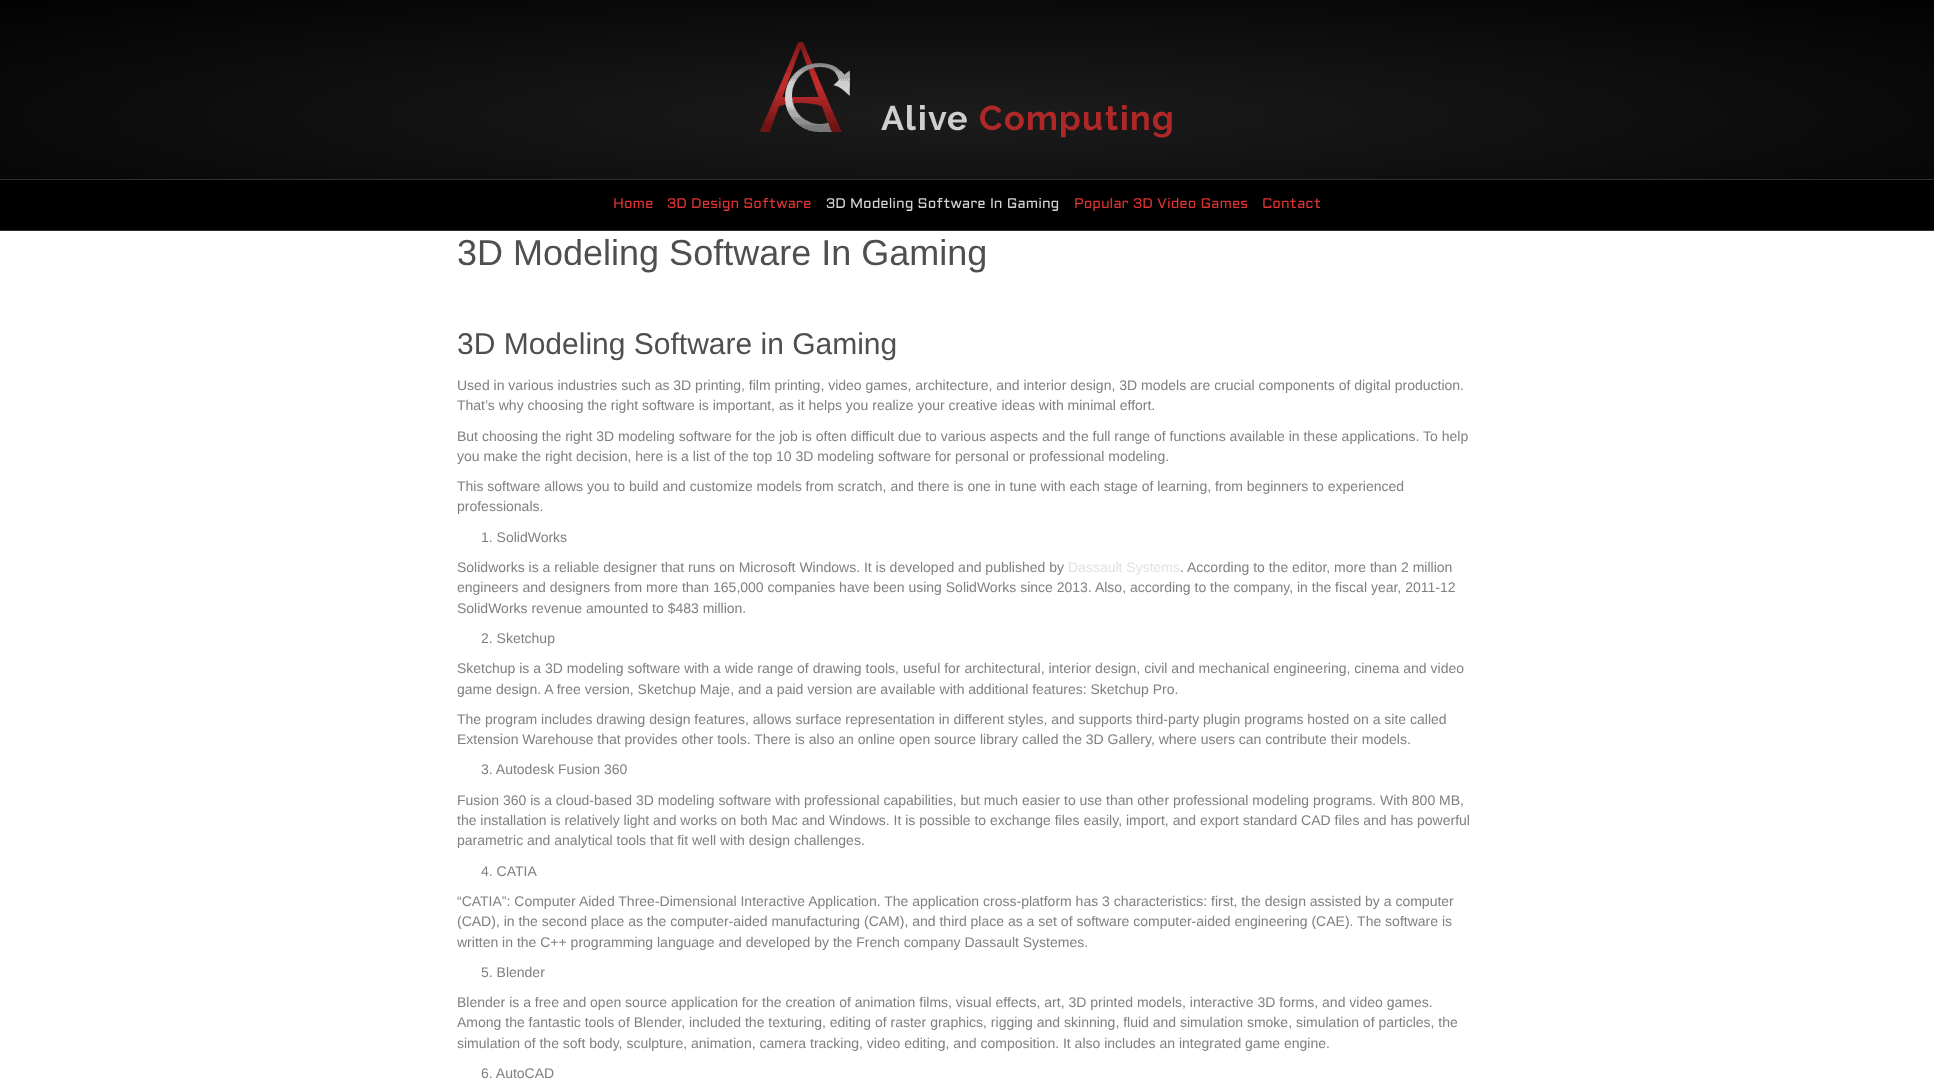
<!DOCTYPE html>
<meta charset="utf-8">
<style>body { margin: 0 } canvas { display: block }</style>
<canvas id="canvas" width="1934" height="1090"></canvas>
<img id="img1" src="img_01.png" hidden>
<script>
window.onload = function () {
	const canvas = document.getElementById("canvas");
	const ctx = canvas.getContext("2d");
	ctx.miterLimit = 4;
	ctx.fontKerning = "normal";
	function txt(s, x, y) {
		ctx.fillText(s, x, y);
	}
	function fill(x, y, w, h) {
		ctx.fillRect(x, y, w, h);
	}
	function img(id, x, y, w, h) {
		ctx.drawImage(document.getElementById(id), x, y, w, h);
	}
	let gradient;

	ctx.fillStyle = "#FFFFFF";
	fill(0, 0, 1934, 1090);
	gradient = ctx.createRadialGradient(967, 973.55, 0, 967, 973.55, 1368);
	gradient.addColorStop(0, "#1C1C1C");
	gradient.addColorStop(1, "#020202");
	ctx.fillStyle = gradient;
	ctx.beginPath();
	ctx.rect(0, 0, 1934, 179);
	ctx.save();
	ctx.clip();
	ctx.scale(1, 163 / 1368);
	ctx.fillRect(0, 0, 1934, 9148);
	ctx.restore();
	img("img1", 760, 42, 412, 96);
	ctx.fillStyle = "#000000";
	fill(0, 180, 1934, 50);
	ctx.fillStyle = "#303030";
	fill(0, 179, 1934, 1);
	fill(0, 230, 1934, 1);
	ctx.font = "14px Aldrich";
	ctx.fillStyle = "#DD3333";
	txt("Home", 613, 208);
	txt("3D Design Software", 667, 208);
	ctx.fillStyle = "#D3D3D3";
	txt("3D Modeling Software In Gaming", 826, 208);
	ctx.fillStyle = "#DD3333";
	txt("Popular 3D Video Games", 1074, 208);
	txt("Contact", 1262, 208);
	ctx.font = "36px Liberation Sans";
	ctx.fillStyle = "#4F4F4F";
	txt("3D Modeling Software In Gaming", 457, 265);
	ctx.font = "30px Liberation Sans";
	txt("3D Modeling Software in Gaming", 457, 354);
	ctx.font = "14px Liberation Sans";
	ctx.fillStyle = "#808080";
	txt("Used in various industries such as 3D printing, film printing, video games, architecture, and interior design, 3D models are crucial components of digital production.", 457, 390);
	txt("That’s why choosing the right software is important, as it helps you realize your creative ideas with minimal effort.", 457, 410);
	txt("But choosing the right 3D modeling software for the job is often difficult due to various aspects and the full range of functions available in these applications. To help", 457, 441);
	txt("you make the right decision, here is a list of the top 10 3D modeling software for personal or professional modeling.", 457, 461);
	txt("This software allows you to build and customize models from scratch, and there is one in tune with each stage of learning, from beginners to experienced", 457, 491);
	txt("professionals.", 457, 511);
	txt("1. SolidWorks", 481, 542);
	txt("Solidworks is a reliable designer that runs on Microsoft Windows. It is developed and published by", 457, 572);
	ctx.fillStyle = "#E2E2E2";
	txt("Dassault Systems", 1068, 572);
	ctx.fillStyle = "#808080";
	txt(". According to the editor, more than 2 million", 1180, 572);
	txt("engineers and designers from more than 165,000 companies have been using SolidWorks since 2013. Also, according to the company, in the fiscal year, 2011-12", 457, 592);
	txt("SolidWorks revenue amounted to $483 million.", 457, 613);
	txt("2. Sketchup", 481, 643);
	txt("Sketchup is a 3D modeling software with a wide range of drawing tools, useful for architectural, interior design, civil and mechanical engineering, cinema and video", 457, 673);
	txt("game design. A free version, Sketchup Maje, and a paid version are available with additional features: Sketchup Pro.", 457, 694);
	txt("The program includes drawing design features, allows surface representation in different styles, and supports third-party plugin programs hosted on a site called", 457, 724);
	txt("Extension Warehouse that provides other tools. There is also an online open source library called the 3D Gallery, where users can contribute their models.", 457, 744);
	txt("3. Autodesk Fusion 360", 481, 774);
	txt("Fusion 360 is a cloud-based 3D modeling software with professional capabilities, but much easier to use than other professional modeling programs. With 800 MB,", 457, 805);
	txt("the installation is relatively light and works on both Mac and Windows. It is possible to exchange files easily, import, and export standard CAD files and has powerful", 457, 825);
	txt("parametric and analytical tools that fit well with design challenges.", 457, 845);
	txt("4. CATIA", 481, 876);
	txt("“CATIA”: Computer Aided Three-Dimensional Interactive Application. The application cross-platform has 3 characteristics: first, the design assisted by a computer", 457, 906);
	txt("(CAD), in the second place as the computer-aided manufacturing (CAM), and third place as a set of software computer-aided engineering (CAE). The software is", 457, 926);
	txt("written in the C++ programming language and developed by the French company Dassault Systemes.", 457, 947);
	txt("5. Blender", 481, 977);
	txt("Blender is a free and open source application for the creation of animation films, visual effects, art, 3D printed models, interactive 3D forms, and video games.", 457, 1007);
	txt("Among the fantastic tools of Blender, included the texturing, editing of raster graphics, rigging and skinning, fluid and simulation smoke, simulation of particles, the", 457, 1027);
	txt("simulation of the soft body, sculpture, animation, camera tracking, video editing, and composition. It also includes an integrated game engine.", 457, 1048);
	txt("6. AutoCAD", 481, 1078);
};
</script>
